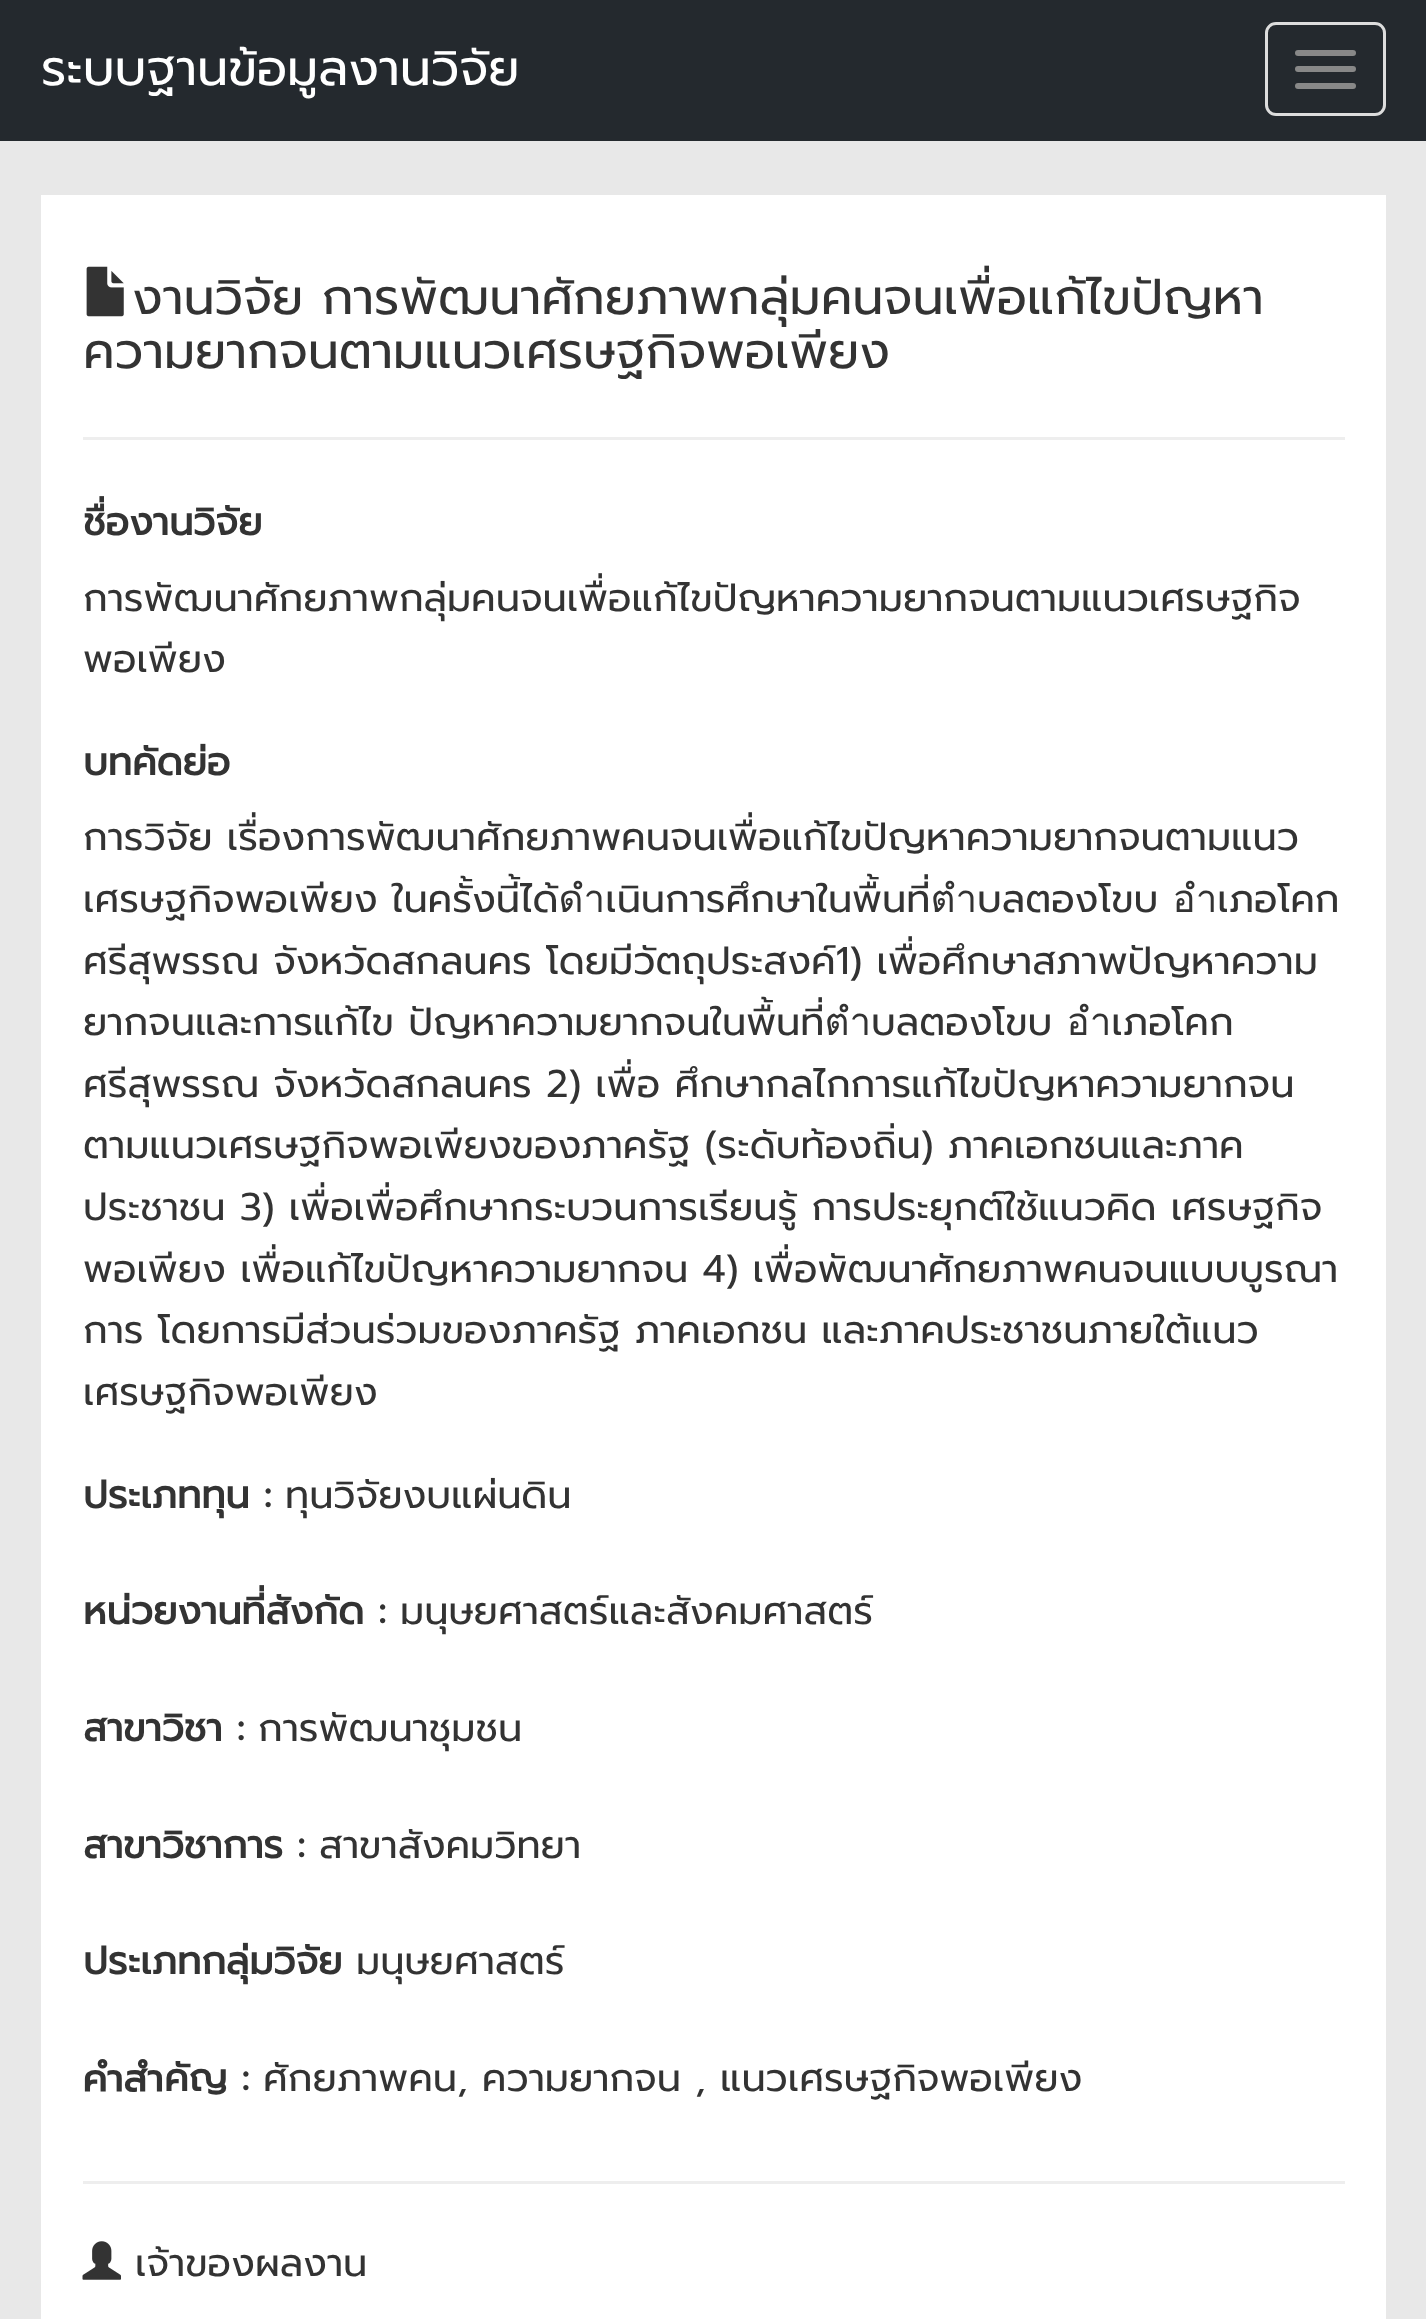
<!DOCTYPE html>
<meta charset="utf-8">
<style>body { margin: 0 } canvas { display: block }</style>
<canvas id="canvas" width="1426" height="2319"></canvas>
<img id="img1" src="img_01.png" hidden>
<img id="img2" src="img_02.png" hidden>
<script>
window.onload = function () {
	const canvas = document.getElementById("canvas");
	const ctx = canvas.getContext("2d");
	ctx.miterLimit = 4;
	ctx.fontKerning = "normal";
	function txt(s, x, y) {
		ctx.fillText(s, x, y);
	}
	function fill(x, y, w, h) {
		ctx.fillRect(x, y, w, h);
	}
	function round(x, y, w, h, r) {
		ctx.beginPath();
		ctx.roundRect(x, y, w, h, r);
		ctx.fill();
	}
	function img(id, x, y, w, h) {
		ctx.drawImage(document.getElementById(id), x, y, w, h);
	}

	ctx.fillStyle = "#E8E8E8";
	fill(0, 0, 1426, 2319);
	ctx.fillStyle = "#24292E";
	fill(0, 0, 1426, 141);
	ctx.beginPath();
	ctx.roundRect(1266.5, 23.5, 118, 91, 9.5);
	ctx.strokeStyle = "#DDDDDD";
	ctx.lineWidth = 3;
	ctx.stroke();
	ctx.fillStyle = "#888888";
	round(1295, 50, 61, 6, 3);
	round(1295, 66, 61, 6, 3);
	round(1295, 83, 61, 6, 3);
	ctx.fillStyle = "#FFFFFF";
	fill(41, 195, 1345, 2124);
	img("img1", 86, 266, 38, 51);
	ctx.fillStyle = "#EEEEEE";
	fill(83, 437, 1262, 3);
	fill(83, 2181, 1262, 3);
	img("img2", 82, 2241, 39, 39);
	ctx.font = "49.5px Prompt";
	ctx.fillStyle = "#FFFFFF";
	txt("ระบบฐานข้อมูลงานวิจัย", 41, 85);
	ctx.fillStyle = "#333333";
	txt("งานวิจัย การพัฒนาศักยภาพกลุ่มคนจนเพื่อแก้ไขปัญหา", 132, 314);
	txt("ความยากจนตามแนวเศรษฐกิจพอเพียง", 83, 368);
	ctx.font = "bold 38.5px Prompt";
	txt("ชื่องานวิจัย", 83, 535);
	ctx.font = "38.5px Prompt";
	txt("การพัฒนาศักยภาพกลุ่มคนจนเพื่อแก้ไขปัญหาความยากจนตามแนวเศรษฐกิจ", 83, 611);
	txt("พอเพียง", 83, 672);
	ctx.font = "bold 38.5px Prompt";
	txt("บทคัดย่อ", 83, 775);
	ctx.font = "38.5px Prompt";
	txt("การวิจัย เรื่องการพัฒนาศักยภาพคนจนเพื่อแก้ไขปัญหาความยากจนตามแนว", 83, 850);
	txt("เศรษฐกิจพอเพียง ในครั้งนี้ได้ดำเนินการศึกษาในพื้นที่ตำบลตองโขบ อำเภอโคก", 83, 912);
	txt("ศรีสุพรรณ จังหวัดสกลนคร โดยมีวัตถุประสงค์1) เพื่อศึกษาสภาพปัญหาความ", 83, 974);
	txt("ยากจนและการแก้ไข ปัญหาความยากจนในพื้นที่ตำบลตองโขบ อำเภอโคก", 83, 1035);
	txt("ศรีสุพรรณ จังหวัดสกลนคร 2) เพื่อ ศึกษากลไกการแก้ไขปัญหาความยากจน", 83, 1097);
	txt("ตามแนวเศรษฐกิจพอเพียงของภาครัฐ (ระดับท้องถิ่น) ภาคเอกชนและภาค", 83, 1158);
	txt("ประชาชน 3) เพื่อเพื่อศึกษากระบวนการเรียนรู้ การประยุกต์ใช้แนวคิด เศรษฐกิจ", 83, 1220);
	txt("พอเพียง เพื่อแก้ไขปัญหาความยากจน 4) เพื่อพัฒนาศักยภาพคนจนแบบบูรณา", 83, 1282);
	txt("การ โดยการมีส่วนร่วมของภาครัฐ ภาคเอกชน และภาคประชาชนภายใต้แนว", 83, 1343);
	txt("เศรษฐกิจพอเพียง", 83, 1405);
	ctx.font = "bold 38.5px Prompt";
	txt("ประเภททุน :", 83, 1508);
	ctx.font = "38.5px Prompt";
	txt("ทุนวิจัยงบแผ่นดิน", 285, 1508);
	ctx.font = "bold 38.5px Prompt";
	txt("หน่วยงานที่สังกัด :", 83, 1624);
	ctx.font = "38.5px Prompt";
	txt("มนุษยศาสตร์และสังคมศาสตร์", 400, 1624);
	ctx.font = "bold 38.5px Prompt";
	txt("สาขาวิชา :", 83, 1741);
	ctx.font = "38.5px Prompt";
	txt("การพัฒนาชุมชน", 258, 1741);
	ctx.font = "bold 38.5px Prompt";
	txt("สาขาวิชาการ :", 83, 1858);
	ctx.font = "38.5px Prompt";
	txt("สาขาสังคมวิทยา", 319, 1858);
	ctx.font = "bold 38.5px Prompt";
	txt("ประเภทกลุ่มวิจัย", 83, 1974);
	ctx.font = "38.5px Prompt";
	txt("มนุษยศาสตร์", 356, 1974);
	ctx.font = "bold 38.5px Prompt";
	txt("คำสำคัญ :", 83, 2091);
	ctx.font = "38.5px Prompt";
	txt("ศักยภาพคน, ความยากจน , แนวเศรษฐกิจพอเพียง", 263, 2091);
	txt("เจ้าของผลงาน", 135, 2276);
};
</script>
